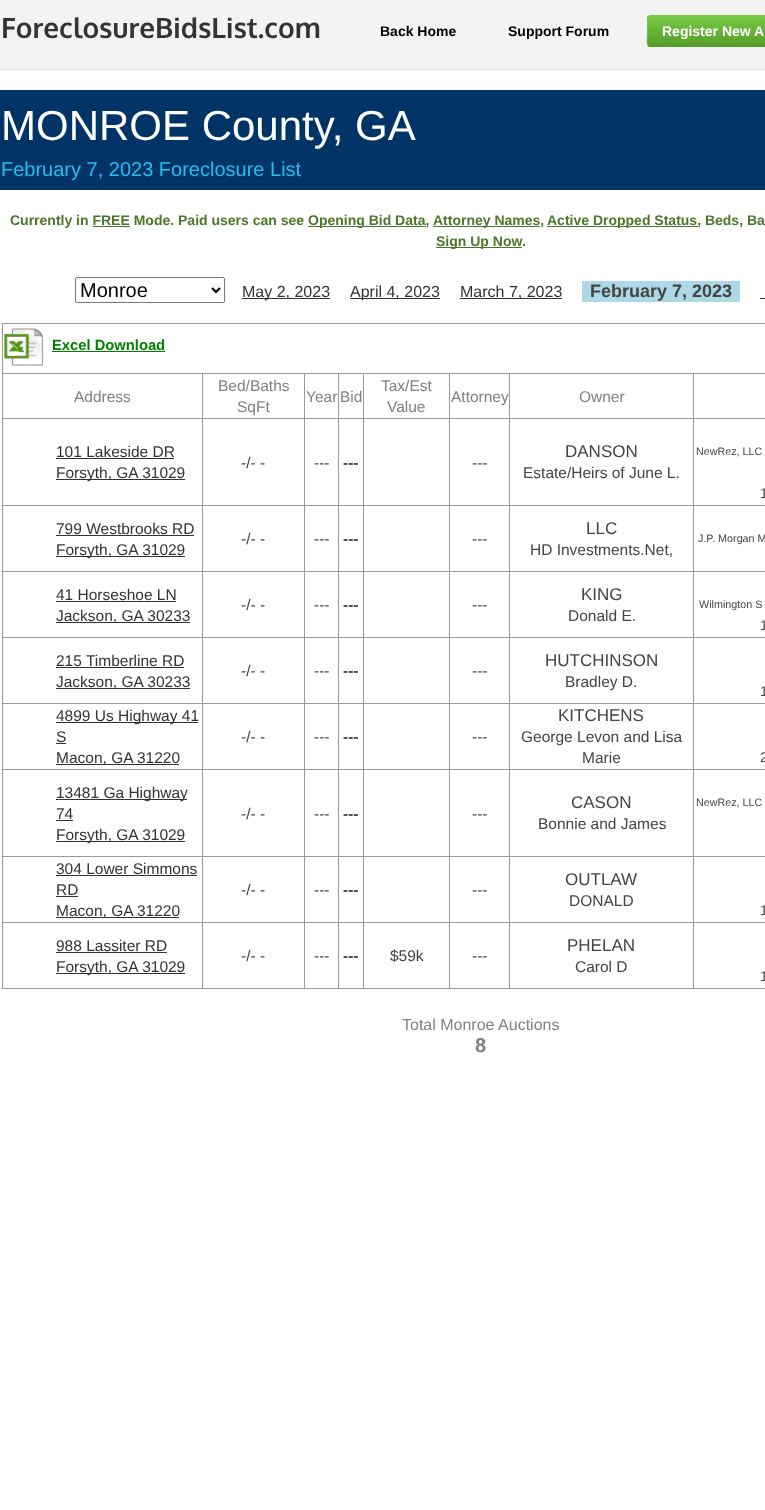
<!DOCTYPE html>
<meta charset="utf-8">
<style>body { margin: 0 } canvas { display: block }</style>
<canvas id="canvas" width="765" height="1510"></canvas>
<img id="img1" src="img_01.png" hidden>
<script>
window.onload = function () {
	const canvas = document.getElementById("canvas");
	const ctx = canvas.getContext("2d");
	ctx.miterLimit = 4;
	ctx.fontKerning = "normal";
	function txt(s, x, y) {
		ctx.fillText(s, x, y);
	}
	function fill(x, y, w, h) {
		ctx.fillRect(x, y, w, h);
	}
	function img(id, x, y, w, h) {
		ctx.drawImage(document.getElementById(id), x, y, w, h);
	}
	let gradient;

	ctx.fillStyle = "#FFFFFF";
	fill(0, 0, 765, 1510);
	ctx.fillStyle = "#F3F3F3";
	fill(0, 0, 765, 69);
	ctx.fillStyle = "#E2E2E2";
	fill(0, 69, 765, 1);
	ctx.save();
	ctx.beginPath();
	ctx.roundRect(647, 15, 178, 32, 3);
	ctx.clip();
	gradient = ctx.createLinearGradient(736, 16, 736, 46);
	gradient.addColorStop(0, "#76CA43");
	gradient.addColorStop(1, "#569D2B");
	ctx.fillStyle = gradient;
	fill(647, 16, 118, 30);
	ctx.restore();
	ctx.beginPath();
	ctx.moveTo(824, 46);
	ctx.lineTo(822, 46.5);
	ctx.lineTo(650, 46.5);
	ctx.lineTo(648, 46);
	ctx.strokeStyle = "#569D2B";
	ctx.stroke();
	ctx.beginPath();
	ctx.moveTo(648, 46);
	ctx.bezierCurveTo(646.5, 44, 647.5, 33.5, 647.5, 31);
	ctx.lineTo(647.5, 22);
	ctx.bezierCurveTo(647.5, 20.5, 646.5, 15.5, 650, 15.5);
	ctx.lineTo(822, 15.5);
	ctx.bezierCurveTo(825.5, 15.5, 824.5, 20.5, 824.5, 22);
	ctx.lineTo(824.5, 31);
	ctx.bezierCurveTo(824.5, 33.5, 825.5, 44, 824, 46);
	ctx.strokeStyle = "#76CA43";
	ctx.stroke();
	ctx.fillStyle = "#003366";
	fill(0, 90, 765, 100);
	ctx.fillStyle = "#4C7629";
	fill(308, 226, 118, 1);
	fill(433, 226, 107, 1);
	fill(547, 226, 151, 1);
	fill(93, 226, 37, 1);
	fill(436, 247, 86, 1);
	ctx.beginPath();
	ctx.roundRect(75.5, 277.5, 149, 25, 1.5);
	ctx.strokeStyle = "#777777";
	ctx.stroke();
	ctx.beginPath();
	ctx.moveTo(212, 288);
	ctx.lineTo(216, 292);
	ctx.lineTo(220, 288);
	ctx.strokeStyle = "#000000";
	ctx.lineWidth = 2;
	ctx.stroke();
	ctx.fillStyle = "#333333";
	fill(242, 298, 88, 1);
	fill(350, 298, 90, 1);
	fill(460, 298, 102, 1);
	ctx.fillStyle = "#ADD8E6";
	fill(582, 281, 158, 21);
	ctx.fillStyle = "#333333";
	fill(760, 298, 5, 1);
	ctx.fillStyle = "#999999";
	fill(2, 323, 763, 1);
	fill(2, 988, 763, 1);
	fill(2, 323, 1, 666);
	img("img1", 4, 328, 40, 38);
	ctx.fillStyle = "#008000";
	fill(52, 351, 113, 1);
	ctx.fillStyle = "#999999";
	fill(693, 373, 72, 1);
	fill(693, 418, 72, 1);
	fill(693, 505, 72, 1);
	fill(693, 571, 72, 1);
	fill(693, 637, 72, 1);
	fill(693, 703, 72, 1);
	fill(693, 769, 72, 1);
	fill(693, 856, 72, 1);
	fill(693, 922, 72, 1);
	fill(693, 922, 1, 67);
	fill(509, 922, 185, 1);
	fill(693, 856, 1, 67);
	fill(509, 856, 185, 1);
	fill(693, 769, 1, 88);
	fill(509, 769, 185, 1);
	fill(693, 703, 1, 67);
	fill(509, 703, 185, 1);
	fill(693, 637, 1, 67);
	fill(509, 637, 185, 1);
	fill(693, 571, 1, 67);
	fill(509, 571, 185, 1);
	fill(693, 505, 1, 67);
	fill(509, 505, 185, 1);
	fill(693, 418, 1, 88);
	fill(509, 418, 185, 1);
	fill(693, 373, 1, 46);
	fill(509, 373, 185, 1);
	fill(509, 922, 1, 67);
	fill(449, 922, 61, 1);
	fill(509, 856, 1, 67);
	fill(449, 856, 61, 1);
	fill(509, 769, 1, 88);
	fill(449, 769, 61, 1);
	fill(509, 703, 1, 67);
	fill(449, 703, 61, 1);
	fill(509, 637, 1, 67);
	fill(449, 637, 61, 1);
	fill(509, 571, 1, 67);
	fill(449, 571, 61, 1);
	fill(509, 505, 1, 67);
	fill(449, 505, 61, 1);
	fill(509, 418, 1, 88);
	fill(449, 418, 61, 1);
	fill(509, 373, 1, 46);
	fill(449, 373, 61, 1);
	fill(449, 922, 1, 67);
	fill(363, 922, 87, 1);
	fill(449, 856, 1, 67);
	fill(363, 856, 87, 1);
	fill(449, 769, 1, 88);
	fill(363, 769, 87, 1);
	fill(449, 703, 1, 67);
	fill(363, 703, 87, 1);
	fill(449, 637, 1, 67);
	fill(363, 637, 87, 1);
	fill(449, 571, 1, 67);
	fill(363, 571, 87, 1);
	fill(449, 505, 1, 67);
	fill(363, 505, 87, 1);
	fill(449, 418, 1, 88);
	fill(363, 418, 87, 1);
	fill(449, 373, 1, 46);
	fill(363, 373, 87, 1);
	fill(363, 922, 1, 67);
	fill(338, 922, 26, 1);
	fill(363, 856, 1, 67);
	fill(338, 856, 26, 1);
	fill(363, 769, 1, 88);
	fill(338, 769, 26, 1);
	fill(363, 703, 1, 67);
	fill(338, 703, 26, 1);
	fill(363, 637, 1, 67);
	fill(338, 637, 26, 1);
	fill(363, 571, 1, 67);
	fill(338, 571, 26, 1);
	fill(363, 505, 1, 67);
	fill(338, 505, 26, 1);
	fill(363, 418, 1, 88);
	fill(338, 418, 26, 1);
	fill(363, 373, 1, 46);
	fill(338, 373, 26, 1);
	fill(338, 922, 1, 67);
	fill(304, 922, 35, 1);
	fill(338, 856, 1, 67);
	fill(304, 856, 35, 1);
	fill(338, 769, 1, 88);
	fill(304, 769, 35, 1);
	fill(338, 703, 1, 67);
	fill(304, 703, 35, 1);
	fill(338, 637, 1, 67);
	fill(304, 637, 35, 1);
	fill(338, 571, 1, 67);
	fill(304, 571, 35, 1);
	fill(338, 505, 1, 67);
	fill(304, 505, 35, 1);
	fill(338, 418, 1, 88);
	fill(304, 418, 35, 1);
	fill(338, 373, 1, 46);
	fill(304, 373, 35, 1);
	fill(304, 922, 1, 67);
	fill(202, 922, 103, 1);
	fill(304, 856, 1, 67);
	fill(202, 856, 103, 1);
	fill(304, 769, 1, 88);
	fill(202, 769, 103, 1);
	fill(304, 703, 1, 67);
	fill(202, 703, 103, 1);
	fill(304, 637, 1, 67);
	fill(202, 637, 103, 1);
	fill(304, 571, 1, 67);
	fill(202, 571, 103, 1);
	fill(304, 505, 1, 67);
	fill(202, 505, 103, 1);
	fill(304, 418, 1, 88);
	fill(202, 418, 103, 1);
	fill(304, 373, 1, 46);
	fill(202, 373, 103, 1);
	fill(202, 922, 1, 67);
	fill(2, 922, 201, 1);
	fill(202, 856, 1, 67);
	fill(2, 856, 201, 1);
	fill(202, 769, 1, 88);
	fill(2, 769, 201, 1);
	fill(202, 703, 1, 67);
	fill(2, 703, 201, 1);
	fill(202, 637, 1, 67);
	fill(2, 637, 201, 1);
	fill(202, 571, 1, 67);
	fill(2, 571, 201, 1);
	fill(202, 505, 1, 67);
	fill(2, 505, 201, 1);
	fill(202, 418, 1, 88);
	fill(2, 418, 201, 1);
	fill(202, 373, 1, 46);
	fill(2, 373, 201, 1);
	ctx.fillStyle = "#333333";
	fill(56, 458, 118, 1);
	fill(56, 479, 129, 1);
	fill(56, 535, 138, 1);
	fill(56, 556, 129, 1);
	fill(56, 601, 120, 1);
	fill(56, 622, 134, 1);
	fill(56, 667, 128, 1);
	fill(56, 688, 134, 1);
	fill(56, 722, 142, 1);
	fill(56, 743, 10, 1);
	fill(56, 764, 123, 1);
	fill(56, 799, 131, 1);
	fill(56, 820, 17, 1);
	fill(56, 841, 129, 1);
	fill(56, 875, 141, 1);
	fill(56, 896, 22, 1);
	fill(56, 917, 123, 1);
	fill(56, 952, 111, 1);
	fill(56, 973, 129, 1);
	ctx.font = "bold 28px Oxygen";
	txt("ForeclosureBidsList.com", 1, 38);
	ctx.font = "bold 14px Liberation Sans";
	ctx.fillStyle = "#000000";
	txt("Back Home", 380, 36);
	txt("Support Forum", 508, 36);
	ctx.fillStyle = "#FFFFFF";
	txt("Register New A", 662, 36);
	ctx.font = "42px Liberation Sans";
	txt("MONROE County, GA", 1, 140);
	ctx.font = "20px Liberation Sans";
	ctx.fillStyle = "#23C0F1";
	txt("February 7, 2023 Foreclosure List", 1, 176);
	ctx.font = "bold 14px Liberation Sans";
	ctx.fillStyle = "#4C7629";
	txt("Currently in FREE Mode. Paid users can see", 10, 225);
	txt("Opening Bid Data,", 308, 225);
	txt("Attorney Names,", 433, 225);
	txt("Active Dropped Status, Beds, Ba", 547, 225);
	txt("Sign Up Now", 436, 246);
	txt(".", 522, 246);
	ctx.font = "20px Liberation Sans";
	ctx.fillStyle = "#000000";
	txt("Monroe", 80, 297);
	ctx.font = "16px Liberation Sans";
	ctx.fillStyle = "#333333";
	txt("May 2, 2023", 242, 297);
	txt("April 4, 2023", 350, 297);
	txt("March 7, 2023", 460, 297);
	ctx.font = "bold 18px Liberation Sans";
	ctx.fillStyle = "#444444";
	txt("February 7, 2023", 590, 297);
	ctx.font = "bold 14.75px Liberation Sans";
	ctx.fillStyle = "#008000";
	txt("Excel Download", 52, 350);
	ctx.font = "15.5px Liberation Sans";
	ctx.fillStyle = "#808080";
	txt("Address", 74, 402);
	txt("Bed/Baths", 218, 391);
	txt("SqFt", 237, 412);
	txt("Year", 306, 402);
	txt("Bid", 340, 402);
	txt("Tax/Est", 381, 391);
	txt("Value", 387, 412);
	txt("Attorney", 451, 402);
	txt("Owner", 579, 402);
	ctx.fillStyle = "#333333";
	txt("101 Lakeside DR", 56, 457);
	txt("Forsyth, GA 31029", 56, 478);
	ctx.fillStyle = "#444444";
	txt("-/- -", 241, 468);
	txt("---", 314, 468);
	ctx.font = "bold 15.5px Liberation Sans";
	txt("---", 343, 468);
	ctx.font = "15.5px Liberation Sans";
	txt("---", 472, 468);
	ctx.font = "17px Liberation Sans";
	txt("DANSON", 565, 457);
	ctx.font = "15.5px Liberation Sans";
	txt("Estate/Heirs of June L.", 523, 478);
	ctx.font = "10.75px Liberation Sans";
	txt("NewRez, LLC", 696, 455);
	ctx.font = "14px Liberation Sans";
	txt("1", 760, 498);
	ctx.font = "15.5px Liberation Sans";
	ctx.fillStyle = "#333333";
	txt("799 Westbrooks RD", 56, 534);
	txt("Forsyth, GA 31029", 56, 555);
	ctx.fillStyle = "#444444";
	txt("-/- -", 241, 544);
	txt("---", 314, 544);
	ctx.font = "bold 15.5px Liberation Sans";
	txt("---", 343, 544);
	ctx.font = "15.5px Liberation Sans";
	txt("---", 472, 544);
	ctx.font = "17px Liberation Sans";
	txt("LLC", 586, 534);
	ctx.font = "15.5px Liberation Sans";
	txt("HD Investments.Net,", 530, 555);
	ctx.font = "10.75px Liberation Sans";
	txt("J.P. Morgan M", 698, 542);
	ctx.font = "15.5px Liberation Sans";
	ctx.fillStyle = "#333333";
	txt("41 Horseshoe LN", 56, 600);
	txt("Jackson, GA 30233", 56, 621);
	ctx.fillStyle = "#444444";
	txt("-/- -", 241, 610);
	txt("---", 314, 610);
	ctx.font = "bold 15.5px Liberation Sans";
	txt("---", 343, 610);
	ctx.font = "15.5px Liberation Sans";
	txt("---", 472, 610);
	ctx.font = "17px Liberation Sans";
	txt("KING", 581, 600);
	ctx.font = "15.5px Liberation Sans";
	txt("Donald E.", 568, 621);
	ctx.font = "10.75px Liberation Sans";
	txt("Wilmington S", 699, 608);
	ctx.font = "14px Liberation Sans";
	txt("1", 760, 630);
	ctx.font = "15.5px Liberation Sans";
	ctx.fillStyle = "#333333";
	txt("215 Timberline RD", 56, 666);
	txt("Jackson, GA 30233", 56, 687);
	ctx.fillStyle = "#444444";
	txt("-/- -", 241, 676);
	txt("---", 314, 676);
	ctx.font = "bold 15.5px Liberation Sans";
	txt("---", 343, 676);
	ctx.font = "15.5px Liberation Sans";
	txt("---", 472, 676);
	ctx.font = "17px Liberation Sans";
	txt("HUTCHINSON", 545, 666);
	ctx.font = "15.5px Liberation Sans";
	txt("Bradley D.", 565, 687);
	ctx.font = "14px Liberation Sans";
	txt("1", 760, 696);
	ctx.font = "15.5px Liberation Sans";
	ctx.fillStyle = "#333333";
	txt("4899 Us Highway 41", 56, 721);
	txt("S", 56, 742);
	txt("Macon, GA 31220", 56, 763);
	ctx.fillStyle = "#444444";
	txt("-/- -", 241, 742);
	txt("---", 314, 742);
	ctx.font = "bold 15.5px Liberation Sans";
	txt("---", 343, 742);
	ctx.font = "15.5px Liberation Sans";
	txt("---", 472, 742);
	ctx.font = "17px Liberation Sans";
	txt("KITCHENS", 558, 721);
	ctx.font = "15.5px Liberation Sans";
	txt("George Levon and Lisa", 521, 742);
	txt("Marie", 582, 763);
	ctx.font = "14px Liberation Sans";
	txt("2", 760, 762);
	ctx.font = "15.5px Liberation Sans";
	ctx.fillStyle = "#333333";
	txt("13481 Ga Highway", 56, 798);
	txt("74", 56, 819);
	txt("Forsyth, GA 31029", 56, 840);
	ctx.font = "17px Liberation Sans";
	ctx.fillStyle = "#444444";
	txt("CASON", 571, 808);
	ctx.font = "15.5px Liberation Sans";
	txt("Bonnie and James", 538, 829);
	ctx.font = "10.75px Liberation Sans";
	txt("NewRez, LLC", 696, 806);
	ctx.font = "15.5px Liberation Sans";
	txt("-/- -", 241, 819);
	txt("---", 314, 819);
	ctx.font = "bold 15.5px Liberation Sans";
	txt("---", 343, 819);
	ctx.font = "15.5px Liberation Sans";
	txt("---", 472, 819);
	ctx.fillStyle = "#333333";
	txt("304 Lower Simmons", 56, 874);
	txt("RD", 56, 895);
	txt("Macon, GA 31220", 56, 916);
	ctx.fillStyle = "#444444";
	txt("-/- -", 241, 895);
	txt("---", 314, 895);
	ctx.font = "bold 15.5px Liberation Sans";
	txt("---", 343, 895);
	ctx.font = "15.5px Liberation Sans";
	txt("---", 472, 895);
	ctx.font = "17px Liberation Sans";
	txt("OUTLAW", 565, 885);
	ctx.font = "15.5px Liberation Sans";
	txt("DONALD", 569, 906);
	ctx.font = "14px Liberation Sans";
	txt("1", 760, 915);
	ctx.font = "15.5px Liberation Sans";
	ctx.fillStyle = "#333333";
	txt("988 Lassiter RD", 56, 951);
	txt("Forsyth, GA 31029", 56, 972);
	ctx.fillStyle = "#444444";
	txt("-/- -", 241, 961);
	txt("---", 314, 961);
	ctx.font = "bold 15.5px Liberation Sans";
	txt("---", 343, 961);
	ctx.font = "15.5px Liberation Sans";
	txt("$59k", 390, 961);
	txt("---", 472, 961);
	ctx.font = "17px Liberation Sans";
	txt("PHELAN", 567, 951);
	ctx.font = "15.5px Liberation Sans";
	txt("Carol D", 575, 972);
	ctx.font = "14px Liberation Sans";
	txt("1", 760, 981);
	ctx.font = "16px Liberation Sans";
	ctx.fillStyle = "#808080";
	txt("Total Monroe Auctions", 402, 1030);
	ctx.font = "bold 20px Liberation Sans";
	txt("8", 475, 1052);
};
</script>
